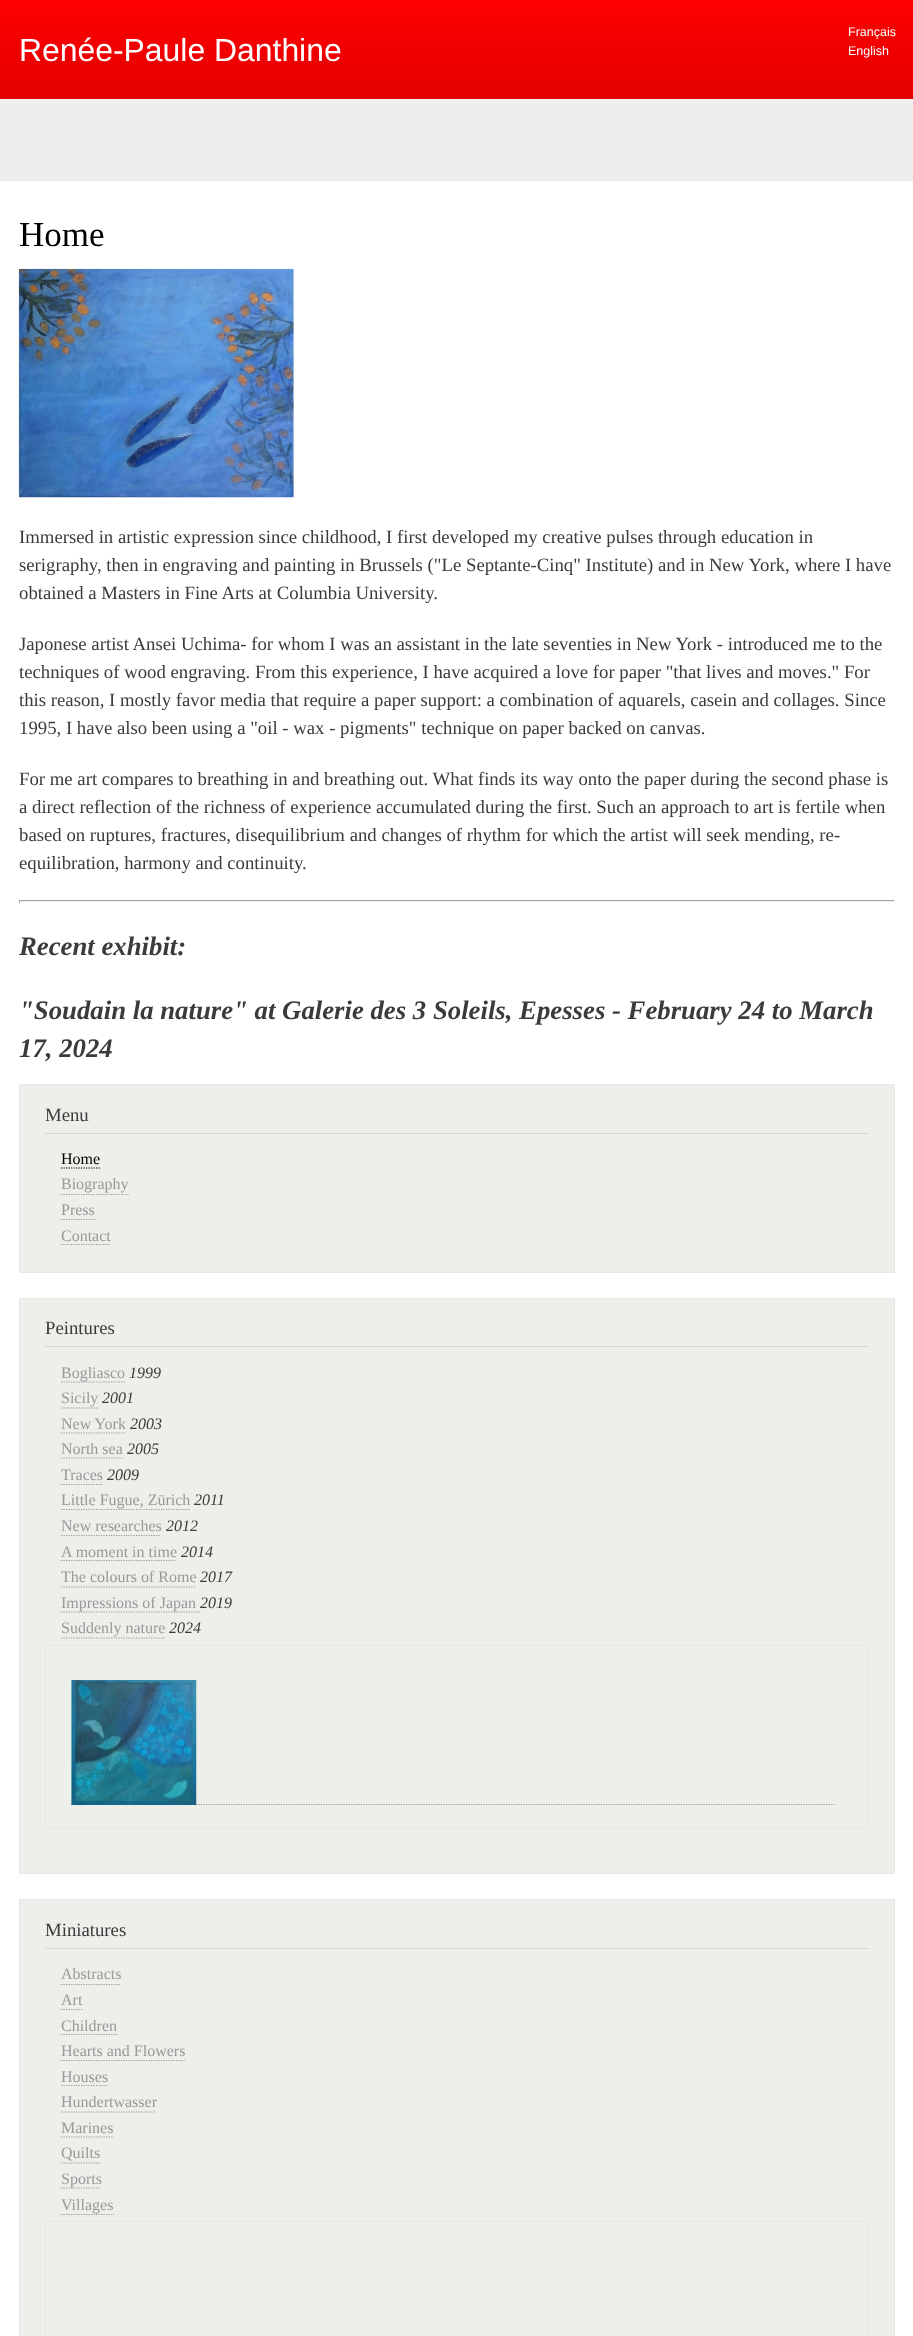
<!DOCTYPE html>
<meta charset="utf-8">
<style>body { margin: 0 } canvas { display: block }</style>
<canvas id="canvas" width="913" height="2336"></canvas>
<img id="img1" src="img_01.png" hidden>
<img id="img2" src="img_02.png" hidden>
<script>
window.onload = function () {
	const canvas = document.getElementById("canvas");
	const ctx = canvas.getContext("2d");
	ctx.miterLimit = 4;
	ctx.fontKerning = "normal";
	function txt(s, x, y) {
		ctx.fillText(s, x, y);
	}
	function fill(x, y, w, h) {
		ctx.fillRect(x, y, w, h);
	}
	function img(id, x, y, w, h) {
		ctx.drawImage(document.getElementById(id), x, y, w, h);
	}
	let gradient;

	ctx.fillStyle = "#FFFFFF";
	fill(0, 0, 913, 2336);
	gradient = ctx.createLinearGradient(457, 0, 457, 99);
	gradient.addColorStop(0, "#FE0000");
	gradient.addColorStop(1, "#E40000");
	ctx.fillStyle = gradient;
	fill(0, 0, 913, 99);
	ctx.fillStyle = "#EDEFEC";
	fill(0, 99, 913, 81);
	ctx.fillStyle = "#E7E7E7";
	fill(0, 180, 913, 1);
	img("img1", 18, 268, 276, 230);
	ctx.fillStyle = "#9F9F9F";
	fill(19, 900, 876, 1);
	ctx.fillStyle = "#EEEEEE";
	fill(894, 900, 1, 3);
	fill(19, 901, 876, 1);
	ctx.fillStyle = "#9F9F9F";
	fill(19, 900, 1, 3);
	ctx.fillStyle = "#EDEFEB";
	ctx.beginPath();
	ctx.rect(19.5, 1084.5, 875, 188);
	ctx.fill();
	ctx.strokeStyle = "#E7E7E7";
	ctx.stroke();
	ctx.fillStyle = "#D6D6D6";
	fill(45, 1133, 824, 1);
	ctx.beginPath();
	ctx.moveTo(61, 1168);
	ctx.lineTo(100, 1168);
	ctx.strokeStyle = "#000000";
	ctx.lineWidth = 1.2;
	ctx.setLineDash([1.25, 1.25]);
	ctx.stroke();
	ctx.beginPath();
	ctx.moveTo(61, 1194.5);
	ctx.lineTo(129, 1194.5);
	ctx.strokeStyle = "#999999";
	ctx.stroke();
	ctx.beginPath();
	ctx.moveTo(61, 1219.5);
	ctx.lineTo(95, 1219.5);
	ctx.stroke();
	ctx.beginPath();
	ctx.moveTo(61, 1244.5);
	ctx.lineTo(111, 1244.5);
	ctx.stroke();
	ctx.fillStyle = "#EDEFEB";
	ctx.beginPath();
	ctx.rect(19.5, 1298.5, 875, 575);
	ctx.fill();
	ctx.strokeStyle = "#E7E7E7";
	ctx.lineWidth = 1;
	ctx.setLineDash([]);
	ctx.stroke();
	ctx.fillStyle = "#D6D6D6";
	fill(45, 1346, 824, 1);
	ctx.beginPath();
	ctx.moveTo(61, 1382);
	ctx.lineTo(125, 1382);
	ctx.strokeStyle = "#999999";
	ctx.lineWidth = 1.2;
	ctx.setLineDash([1.25, 1.25]);
	ctx.stroke();
	ctx.beginPath();
	ctx.moveTo(61, 1408);
	ctx.lineTo(99, 1408);
	ctx.stroke();
	ctx.beginPath();
	ctx.moveTo(61, 1433);
	ctx.lineTo(126, 1433);
	ctx.stroke();
	ctx.beginPath();
	ctx.moveTo(61, 1458);
	ctx.lineTo(122.5, 1458);
	ctx.stroke();
	ctx.beginPath();
	ctx.moveTo(61, 1484.5);
	ctx.lineTo(102.5, 1484.5);
	ctx.stroke();
	ctx.beginPath();
	ctx.moveTo(61, 1509.5);
	ctx.lineTo(190, 1509.5);
	ctx.stroke();
	ctx.beginPath();
	ctx.moveTo(61, 1535.5);
	ctx.lineTo(161, 1535.5);
	ctx.stroke();
	ctx.beginPath();
	ctx.moveTo(61, 1560.5);
	ctx.lineTo(176, 1560.5);
	ctx.stroke();
	ctx.beginPath();
	ctx.moveTo(61, 1587);
	ctx.lineTo(196, 1587);
	ctx.stroke();
	ctx.beginPath();
	ctx.moveTo(61, 1612);
	ctx.lineTo(200, 1612);
	ctx.stroke();
	ctx.beginPath();
	ctx.moveTo(61, 1638);
	ctx.lineTo(165, 1638);
	ctx.stroke();
	ctx.strokeStyle = "#E7E7E7";
	ctx.lineWidth = 1;
	ctx.setLineDash([]);
	ctx.strokeRect(45.5, 1645.5, 823, 183);
	ctx.beginPath();
	ctx.moveTo(71, 1804.5);
	ctx.lineTo(835, 1804.5);
	ctx.strokeStyle = "#999999";
	ctx.lineWidth = 1.2;
	ctx.setLineDash([1.25, 1.25]);
	ctx.stroke();
	img("img2", 71, 1680, 126, 125);
	ctx.fillStyle = "#EDEFEB";
	ctx.beginPath();
	ctx.rect(19.5, 1899.5, 875, 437);
	ctx.fill();
	ctx.strokeStyle = "#E7E7E7";
	ctx.lineWidth = 1;
	ctx.setLineDash([]);
	ctx.stroke();
	ctx.fillStyle = "#D6D6D6";
	fill(45, 1948, 824, 1);
	ctx.beginPath();
	ctx.moveTo(61, 1984.5);
	ctx.lineTo(121, 1984.5);
	ctx.strokeStyle = "#999999";
	ctx.lineWidth = 1.2;
	ctx.setLineDash([1.25, 1.25]);
	ctx.stroke();
	ctx.beginPath();
	ctx.moveTo(61, 2009.5);
	ctx.lineTo(82.5, 2009.5);
	ctx.stroke();
	ctx.beginPath();
	ctx.moveTo(61, 2034.5);
	ctx.lineTo(117.5, 2034.5);
	ctx.stroke();
	ctx.beginPath();
	ctx.moveTo(61, 2060.5);
	ctx.lineTo(185, 2060.5);
	ctx.stroke();
	ctx.beginPath();
	ctx.moveTo(61, 2085.5);
	ctx.lineTo(107.5, 2085.5);
	ctx.stroke();
	ctx.beginPath();
	ctx.moveTo(61, 2112);
	ctx.lineTo(156, 2112);
	ctx.stroke();
	ctx.beginPath();
	ctx.moveTo(61, 2137);
	ctx.lineTo(114, 2137);
	ctx.stroke();
	ctx.beginPath();
	ctx.moveTo(61, 2163);
	ctx.lineTo(100, 2163);
	ctx.stroke();
	ctx.beginPath();
	ctx.moveTo(61, 2188);
	ctx.lineTo(101, 2188);
	ctx.stroke();
	ctx.beginPath();
	ctx.moveTo(61, 2214.5);
	ctx.lineTo(114, 2214.5);
	ctx.stroke();
	ctx.strokeStyle = "#E7E7E7";
	ctx.lineWidth = 1;
	ctx.setLineDash([]);
	ctx.strokeRect(45.5, 2221.5, 823, 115);
	ctx.font = "31.9px Liberation Sans";
	ctx.fillStyle = "#FFFEFF";
	txt("Renée-Paule Danthine", 19, 61);
	ctx.font = "12.5px Liberation Sans";
	txt("Français", 848, 36);
	txt("English", 848, 55);
	ctx.font = "35px Liberation Serif";
	ctx.fillStyle = "#000000";
	txt("Home", 19, 246);
	ctx.font = "18.75px Liberation Serif";
	ctx.fillStyle = "#3B3B3B";
	txt("Immersed in artistic expression since childhood, I first developed my creative pulses through education in", 19, 543);
	txt("serigraphy, then in engraving and painting in Brussels (\"Le Septante-Cinq\" Institute) and in New York, where I have", 19, 571);
	txt("obtained a Masters in Fine Arts at Columbia University.", 19, 599);
	txt("Japonese artist Ansei Uchima- for whom I was an assistant in the late seventies in New York - introduced me to the", 19, 650);
	txt("techniques of wood engraving. From this experience, I have acquired a love for paper \"that lives and moves.\" For", 19, 678);
	txt("this reason, I mostly favor media that require a paper support: a combination of aquarels, casein and collages. Since", 19, 706);
	txt("1995, I have also been using a \"oil - wax - pigments\" technique on paper backed on canvas.", 19, 734);
	txt("For me art compares to breathing in and breathing out. What finds its way onto the paper during the second phase is", 19, 785);
	txt("a direct reflection of the richness of experience accumulated during the first. Such an approach to art is fertile when", 19, 813);
	txt("based on ruptures, fractures, disequilibrium and changes of rhythm for which the artist will seek mending, re-", 19, 841);
	txt("equilibration, harmony and continuity.", 19, 869);
	ctx.font = "italic bold 26.75px Liberation Serif";
	txt("Recent exhibit:", 19, 955);
	txt("\"Soudain la nature\" at Galerie des 3 Soleils, Epesses - February 24 to March", 19, 1019);
	txt("17, 2024", 19, 1057);
	ctx.font = "18.75px Liberation Serif";
	txt("Menu", 45, 1121);
	ctx.font = "16px Liberation Serif";
	ctx.fillStyle = "#000000";
	txt("Home", 61, 1164);
	ctx.fillStyle = "#999999";
	txt("Biography", 61, 1189);
	txt("Press", 61, 1215);
	txt("Contact", 61, 1241);
	ctx.font = "18.75px Liberation Serif";
	ctx.fillStyle = "#3B3B3B";
	txt("Peintures", 45, 1334);
	ctx.font = "16px Liberation Serif";
	ctx.fillStyle = "#999999";
	txt("Bogliasco", 61, 1378);
	ctx.font = "italic 16px Liberation Serif";
	ctx.fillStyle = "#3B3B3B";
	txt("1999", 129, 1378);
	ctx.font = "16px Liberation Serif";
	ctx.fillStyle = "#999999";
	txt("Sicily", 61, 1403);
	ctx.font = "italic 16px Liberation Serif";
	ctx.fillStyle = "#3B3B3B";
	txt("2001", 102, 1403);
	ctx.font = "16px Liberation Serif";
	ctx.fillStyle = "#999999";
	txt("New York", 61, 1429);
	ctx.font = "italic 16px Liberation Serif";
	ctx.fillStyle = "#3B3B3B";
	txt("2003", 130, 1429);
	ctx.font = "16px Liberation Serif";
	ctx.fillStyle = "#999999";
	txt("North sea", 61, 1454);
	ctx.font = "italic 16px Liberation Serif";
	ctx.fillStyle = "#3B3B3B";
	txt("2005", 127, 1454);
	ctx.font = "16px Liberation Serif";
	ctx.fillStyle = "#999999";
	txt("Traces", 61, 1480);
	ctx.font = "italic 16px Liberation Serif";
	ctx.fillStyle = "#3B3B3B";
	txt("2009", 107, 1480);
	ctx.font = "16px Liberation Serif";
	ctx.fillStyle = "#999999";
	txt("Little Fugue, Zürich", 61, 1505);
	ctx.font = "italic 16px Liberation Serif";
	ctx.fillStyle = "#3B3B3B";
	txt("2011", 194, 1505);
	ctx.font = "16px Liberation Serif";
	ctx.fillStyle = "#999999";
	txt("New researches", 61, 1531);
	ctx.font = "italic 16px Liberation Serif";
	ctx.fillStyle = "#3B3B3B";
	txt("2012", 166, 1531);
	ctx.font = "16px Liberation Serif";
	ctx.fillStyle = "#999999";
	txt("A moment in time", 61, 1557);
	ctx.font = "italic 16px Liberation Serif";
	ctx.fillStyle = "#3B3B3B";
	txt("2014", 181, 1557);
	ctx.font = "16px Liberation Serif";
	ctx.fillStyle = "#999999";
	txt("The colours of Rome", 61, 1582);
	ctx.font = "italic 16px Liberation Serif";
	ctx.fillStyle = "#3B3B3B";
	txt("2017", 200, 1582);
	ctx.font = "16px Liberation Serif";
	ctx.fillStyle = "#999999";
	txt("Impressions of Japan", 61, 1608);
	ctx.font = "italic 16px Liberation Serif";
	ctx.fillStyle = "#3B3B3B";
	txt("2019", 200, 1608);
	ctx.font = "16px Liberation Serif";
	ctx.fillStyle = "#999999";
	txt("Suddenly nature", 61, 1633);
	ctx.font = "italic 16px Liberation Serif";
	ctx.fillStyle = "#3B3B3B";
	txt("2024", 169, 1633);
	ctx.font = "18.75px Liberation Serif";
	txt("Miniatures", 45, 1936);
	ctx.font = "16px Liberation Serif";
	ctx.fillStyle = "#999999";
	txt("Abstracts", 61, 1979);
	txt("Art", 61, 2005);
	txt("Children", 61, 2031);
	txt("Hearts and Flowers", 61, 2056);
	txt("Houses", 61, 2082);
	txt("Hundertwasser", 61, 2107);
	txt("Marines", 61, 2133);
	txt("Quilts", 61, 2158);
	txt("Sports", 61, 2184);
	txt("Villages", 61, 2210);
};
</script>
